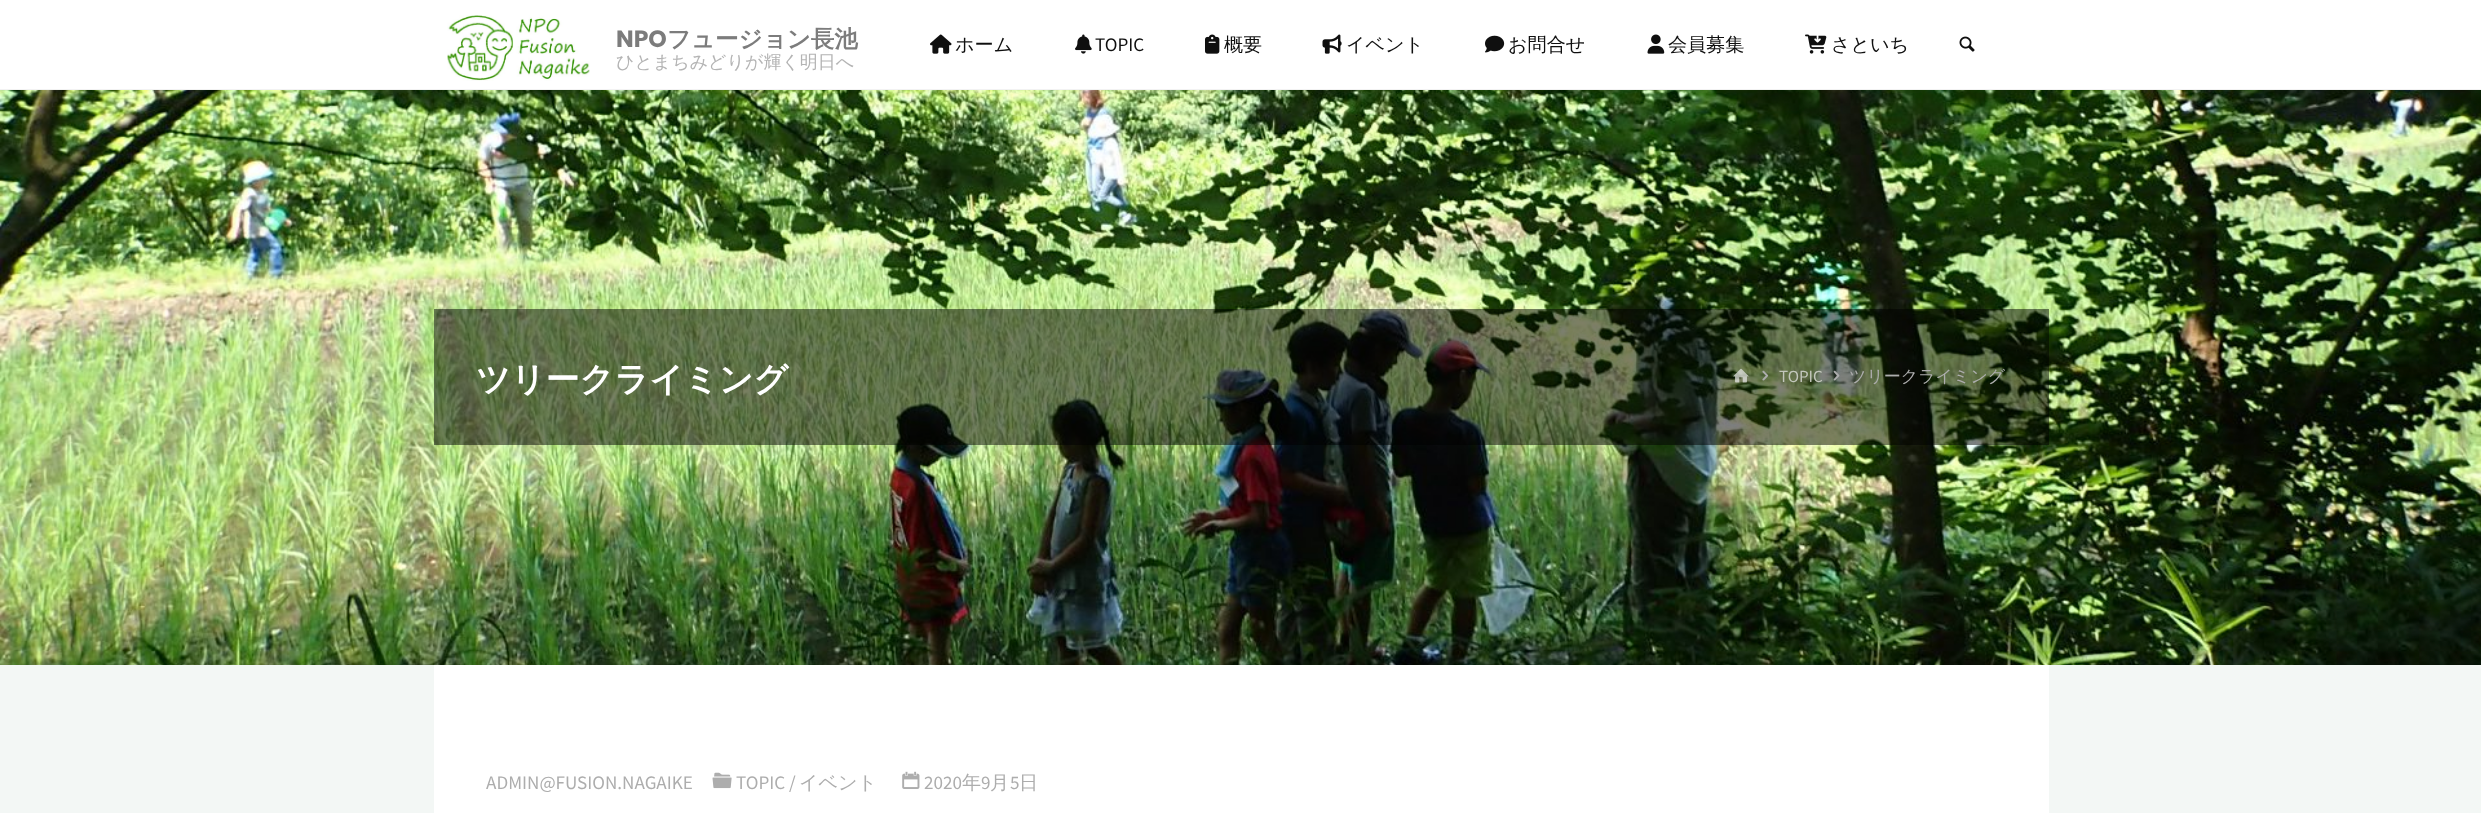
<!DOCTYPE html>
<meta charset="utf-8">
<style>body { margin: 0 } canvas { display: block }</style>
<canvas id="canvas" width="2481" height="813"></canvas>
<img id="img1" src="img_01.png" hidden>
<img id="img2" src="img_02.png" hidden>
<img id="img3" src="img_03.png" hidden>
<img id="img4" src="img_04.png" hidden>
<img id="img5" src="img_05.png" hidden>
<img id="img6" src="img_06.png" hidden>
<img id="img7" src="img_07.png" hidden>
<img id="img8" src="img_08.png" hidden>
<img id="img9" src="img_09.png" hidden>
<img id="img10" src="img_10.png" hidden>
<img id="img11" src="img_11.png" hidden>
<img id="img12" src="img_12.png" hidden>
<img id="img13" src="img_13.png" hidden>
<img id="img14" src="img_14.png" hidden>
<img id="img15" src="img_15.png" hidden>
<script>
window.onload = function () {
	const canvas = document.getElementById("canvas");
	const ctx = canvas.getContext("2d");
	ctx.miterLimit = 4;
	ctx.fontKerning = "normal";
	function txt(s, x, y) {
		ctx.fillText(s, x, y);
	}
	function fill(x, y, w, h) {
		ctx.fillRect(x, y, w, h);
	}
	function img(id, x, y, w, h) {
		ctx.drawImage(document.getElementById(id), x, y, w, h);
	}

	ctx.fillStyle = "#F3F7F5";
	fill(0, 0, 2481, 813);
	ctx.fillStyle = "#FFFFFF";
	fill(0, 0, 2481, 89);
	ctx.fillStyle = "#F2F2F2";
	fill(0, 89, 2481, 1);
	img("img1", 447, 15, 143, 66);
	img("img2", 930, 34, 22, 20);
	img("img3", 1075, 34, 17, 20);
	img("img4", 1205, 34, 15, 20);
	img("img5", 1322, 34, 20, 20);
	img("img6", 1485, 35, 20, 18);
	img("img7", 1647, 34, 18, 20);
	img("img8", 1805, 34, 22, 20);
	img("img9", 1959, 36, 16, 16);
	img("img10", 0, 90, 2481, 575);
	ctx.fillStyle = "rgba(0, 0, 0, 0.5)";
	fill(434, 309, 1615, 136);
	img("img11", 1733, 368, 16, 15);
	img("img12", 1762, 370, 7, 11);
	img("img13", 1833, 370, 7, 11);
	ctx.fillStyle = "#FFFFFF";
	fill(434, 665, 1615, 148);
	img("img14", 712, 772, 20, 17);
	img("img15", 902, 771, 18, 18);
	ctx.font = "bold 23.5px Poppins";
	ctx.fillStyle = "#7C7C7C";
	txt("NPO", 616, 47);
	ctx.font = "bold 23.5px WenQuanYi Zen Hei";
	txt("フュージョン長池", 667, 47);
	ctx.font = "500 18px WenQuanYi Zen Hei";
	ctx.fillStyle = "#B4B4B4";
	txt("ひとまちみどりが輝く明日へ", 616, 68);
	ctx.font = "500 19.1px WenQuanYi Zen Hei";
	ctx.fillStyle = "#0F0F0F";
	txt("ホーム", 955, 51);
	ctx.font = "19.1px Source Sans Pro";
	txt("TOPIC", 1095, 51);
	ctx.font = "500 19.1px WenQuanYi Zen Hei";
	txt("概要", 1224, 51);
	txt("イベント", 1346, 51);
	txt("お問合せ", 1508, 51);
	txt("会員募集", 1668, 51);
	txt("さといち", 1831, 51);
	ctx.font = "bold 34px WenQuanYi Zen Hei";
	ctx.fillStyle = "#FFFFFF";
	txt("ツリークライミング", 476, 391);
	ctx.font = "17px Source Sans Pro";
	ctx.fillStyle = "#C3C7BC";
	txt("TOPIC", 1779, 382);
	ctx.font = "500 17px WenQuanYi Zen Hei";
	ctx.fillStyle = "#ADADAD";
	txt("ツリークライミング", 1849, 382);
	ctx.font = "19.1px Source Sans Pro";
	txt("ADMIN@FUSION.NAGAIKE", 486, 789);
	txt("TOPIC /", 736, 789);
	ctx.font = "500 19.1px WenQuanYi Zen Hei";
	txt("イベント", 799, 789);
	ctx.font = "19.1px Source Sans Pro";
	txt("2020", 924, 789);
	ctx.font = "500 19.1px WenQuanYi Zen Hei";
	txt("年", 962, 789);
	ctx.font = "19.1px Source Sans Pro";
	txt("9", 981, 789);
	ctx.font = "500 19.1px WenQuanYi Zen Hei";
	txt("月", 990, 789);
	ctx.font = "19.1px Source Sans Pro";
	txt("5", 1010, 789);
	ctx.font = "500 19.1px WenQuanYi Zen Hei";
	txt("日", 1019, 789);
};
</script>
